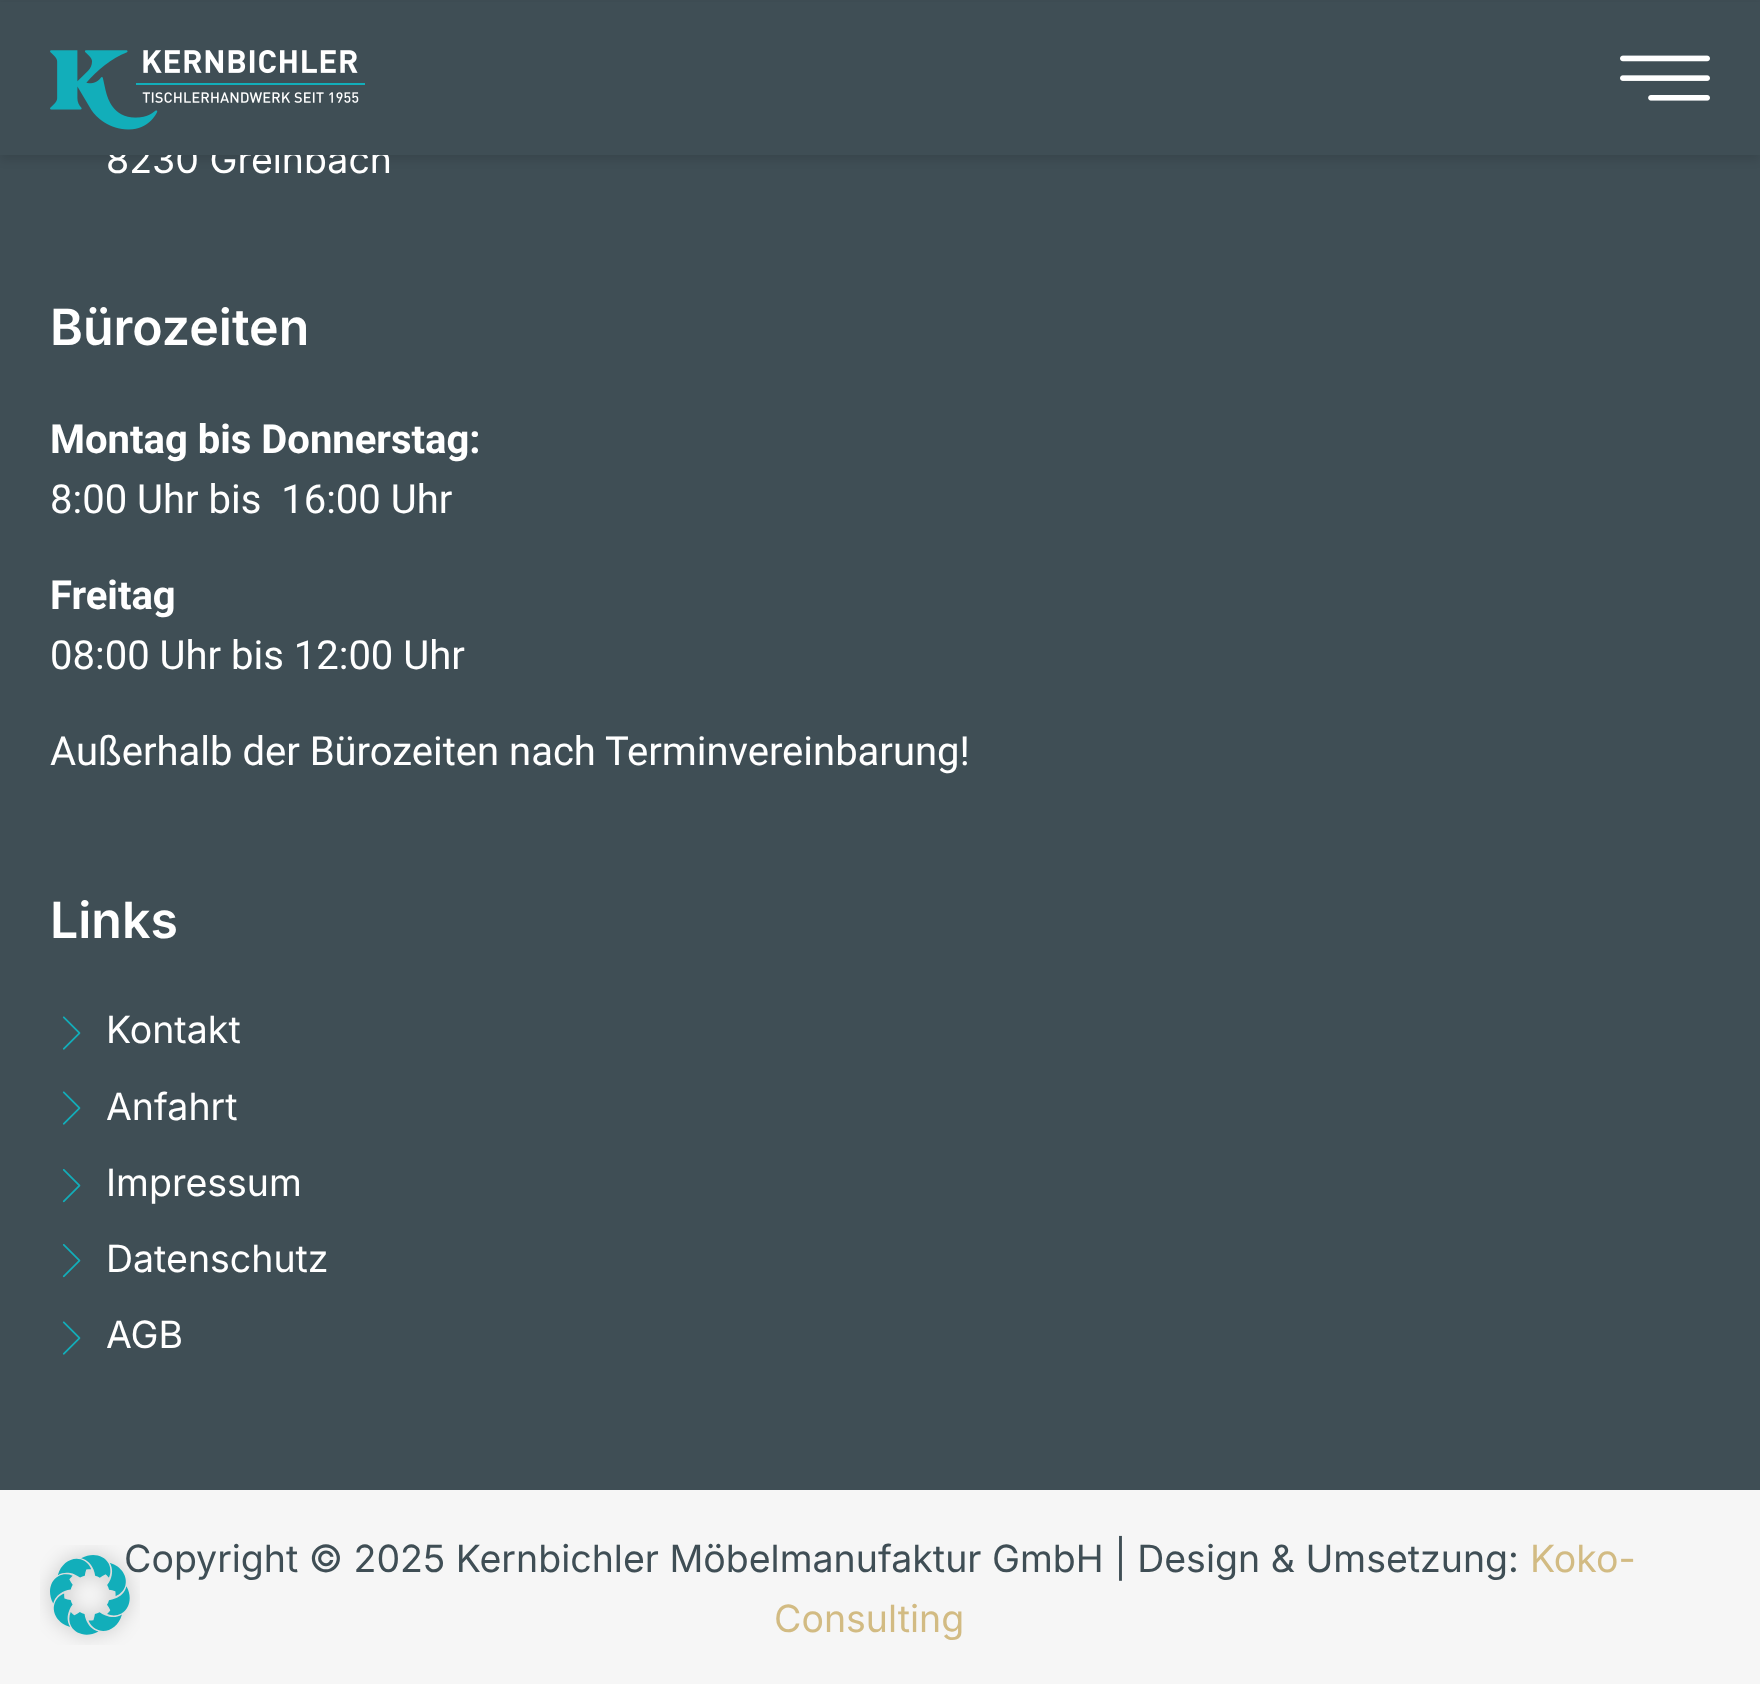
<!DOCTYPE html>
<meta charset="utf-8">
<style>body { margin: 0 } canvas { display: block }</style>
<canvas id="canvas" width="1760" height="1684"></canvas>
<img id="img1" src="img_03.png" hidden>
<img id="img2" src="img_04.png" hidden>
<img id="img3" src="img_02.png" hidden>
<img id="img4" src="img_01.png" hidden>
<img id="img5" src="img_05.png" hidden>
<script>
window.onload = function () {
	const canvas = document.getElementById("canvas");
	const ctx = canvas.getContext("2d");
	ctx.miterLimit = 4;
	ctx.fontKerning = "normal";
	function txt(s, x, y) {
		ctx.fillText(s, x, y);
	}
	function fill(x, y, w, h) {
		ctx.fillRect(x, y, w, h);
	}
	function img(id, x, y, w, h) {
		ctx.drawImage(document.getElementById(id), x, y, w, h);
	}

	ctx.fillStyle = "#3F4E55";
	fill(0, 0, 1760, 1684);
	ctx.fillStyle = "rgba(0, 0, 0, 0.1)";
	ctx.filter = "blur(5px)";
	ctx.beginPath();
	ctx.rect(0, 5, 1760, 155);
	ctx.fill();
	ctx.filter = "none";
	img("img1", 62, 1016, 19, 34);
	img("img1", 62, 1091, 19, 34);
	img("img2", 62, 1169, 19, 34);
	img("img2", 62, 1244, 19, 34);
	img("img1", 62, 1321, 19, 34);
	ctx.fillStyle = "#F6F6F6";
	fill(0, 1490, 1760, 194);
	ctx.font = "37.5px Inter";
	ctx.fillStyle = "#FFFFFF";
	txt("8230 Greinbach", 106, 173);
	ctx.fillStyle = "#3F4E55";
	fill(0, 2, 1760, 153);
	img("img3", 1620, 55, 90, 46);
	img("img4", 50, 50, 315, 80);
	ctx.font = "600 50px Inter";
	ctx.fillStyle = "#FFFFFF";
	txt("Bürozeiten", 50, 345);
	ctx.font = "bold 40px Roboto";
	txt("Montag bis Donnerstag:", 50, 453);
	ctx.font = "40px Roboto";
	txt("8:00 Uhr bis  16:00 Uhr", 50, 513);
	ctx.font = "bold 40px Roboto";
	txt("Freitag", 50, 609);
	ctx.font = "40px Roboto";
	txt("08:00 Uhr bis 12:00 Uhr", 50, 669);
	txt("Außerhalb der Bürozeiten nach Terminvereinbarung!", 50, 765);
	ctx.font = "600 50px Inter";
	txt("Links", 50, 938);
	ctx.font = "37.5px Inter";
	txt("Kontakt", 106, 1043);
	txt("Anfahrt", 106, 1120);
	txt("Impressum", 106, 1196);
	txt("Datenschutz", 106, 1272);
	txt("AGB", 106, 1348);
	ctx.fillStyle = "#3F4E55";
	txt("Copyright © 2025 Kernbichler Möbelmanufaktur GmbH | Design & Umsetzung:", 124, 1572);
	ctx.fillStyle = "#D2BB83";
	txt("Koko-", 1530, 1572);
	txt("Consulting", 774, 1632);
	img("img5", 40, 1545, 100, 100);
};
</script>
